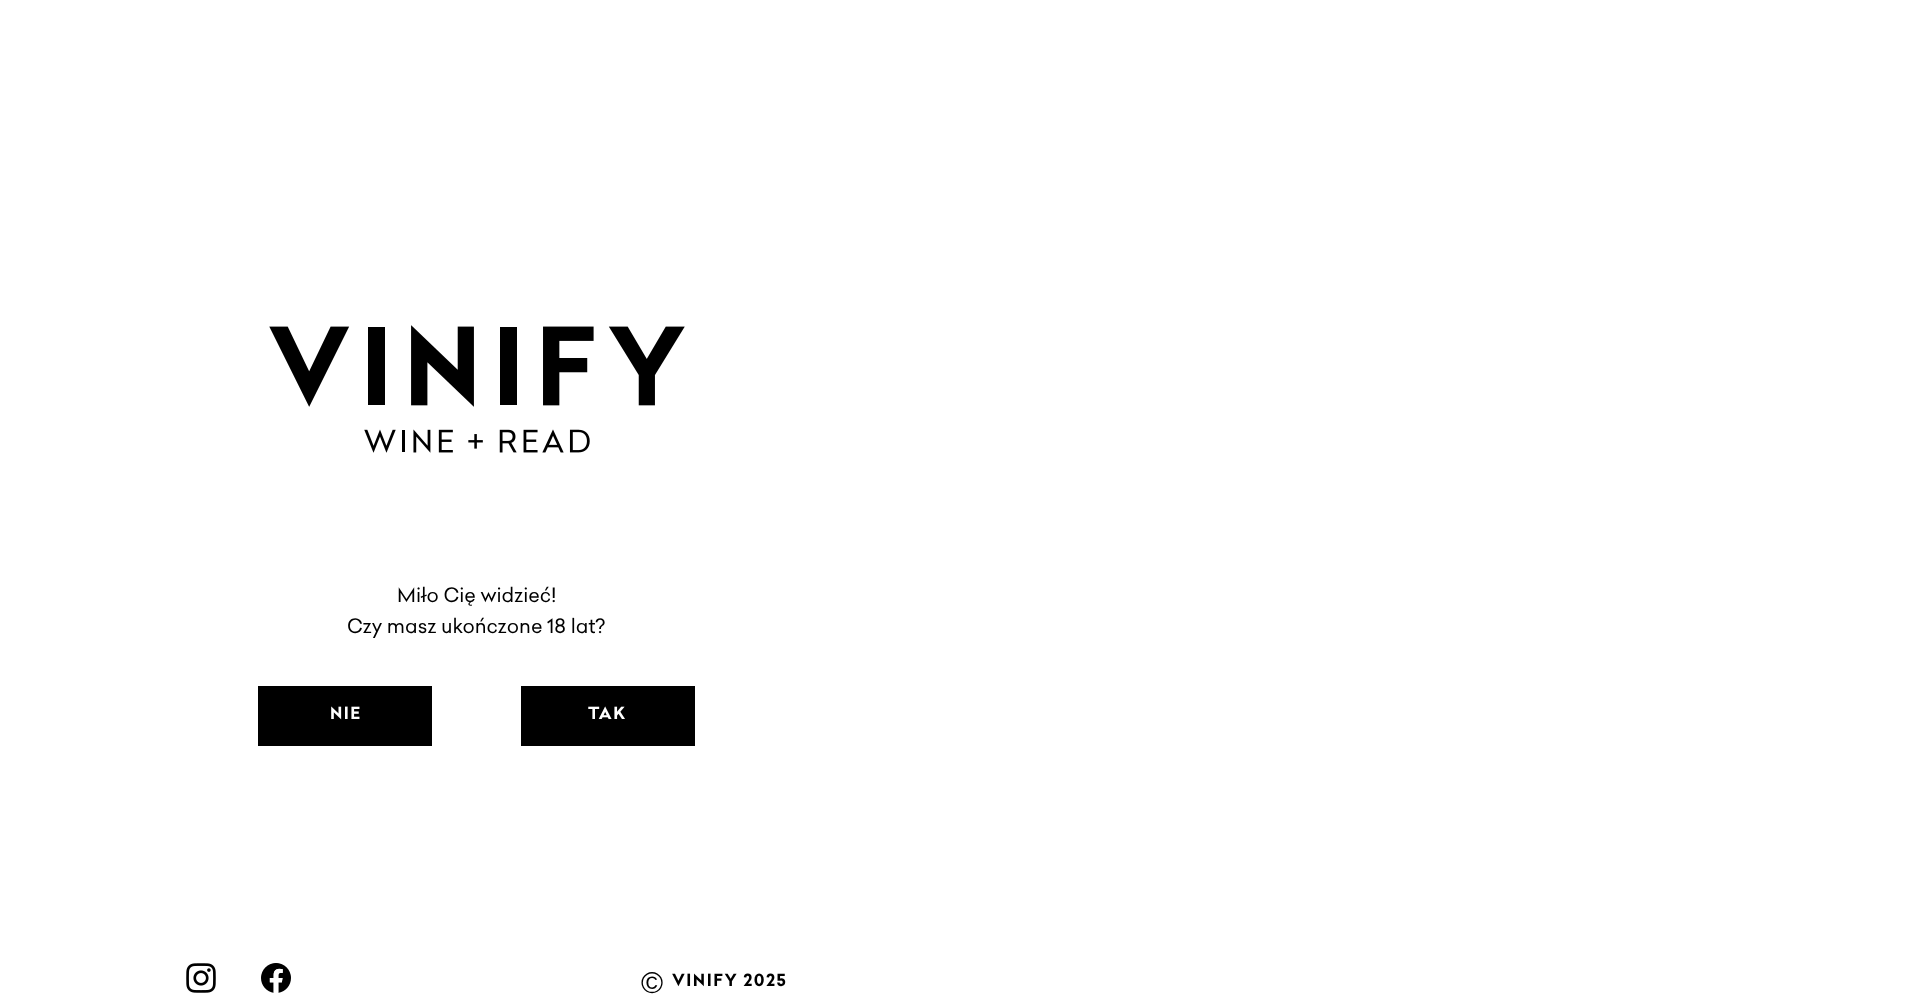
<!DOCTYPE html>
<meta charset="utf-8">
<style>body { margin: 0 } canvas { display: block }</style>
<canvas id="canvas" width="1905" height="996"></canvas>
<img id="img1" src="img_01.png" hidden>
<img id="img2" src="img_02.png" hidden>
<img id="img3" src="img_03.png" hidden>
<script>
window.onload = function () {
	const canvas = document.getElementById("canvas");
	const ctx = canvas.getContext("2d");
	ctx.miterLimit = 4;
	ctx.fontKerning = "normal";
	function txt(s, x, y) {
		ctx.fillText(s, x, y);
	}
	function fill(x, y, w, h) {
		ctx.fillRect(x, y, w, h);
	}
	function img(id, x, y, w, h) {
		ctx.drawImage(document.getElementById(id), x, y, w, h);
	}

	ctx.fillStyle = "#FFFFFF";
	fill(0, 0, 1905, 996);
	img("img1", 269, 325, 416, 128);
	ctx.fillStyle = "#000000";
	fill(258, 686, 174, 60);
	fill(521, 686, 174, 60);
	img("img2", 186, 963, 30, 30);
	img("img3", 261, 963, 30, 30);
	ctx.font = "19.5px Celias";
	txt("Miło Cię widzieć!", 397, 602);
	txt("Czy masz ukończone 18 lat?", 347, 633);
	ctx.letterSpacing = "1.5px";
	ctx.font = "bold 16.5px Celias";
	ctx.fillStyle = "#FFFFFF";
	txt("NIE", 330, 719);
	txt("TAK", 588, 719);
	ctx.font = "30px Liberation Sans";
	ctx.fillStyle = "#000000";
	txt("©", 641, 993);
	ctx.font = "bold 16.5px Celias";
	txt("VINIFY 2025", 672, 986);
};
</script>
